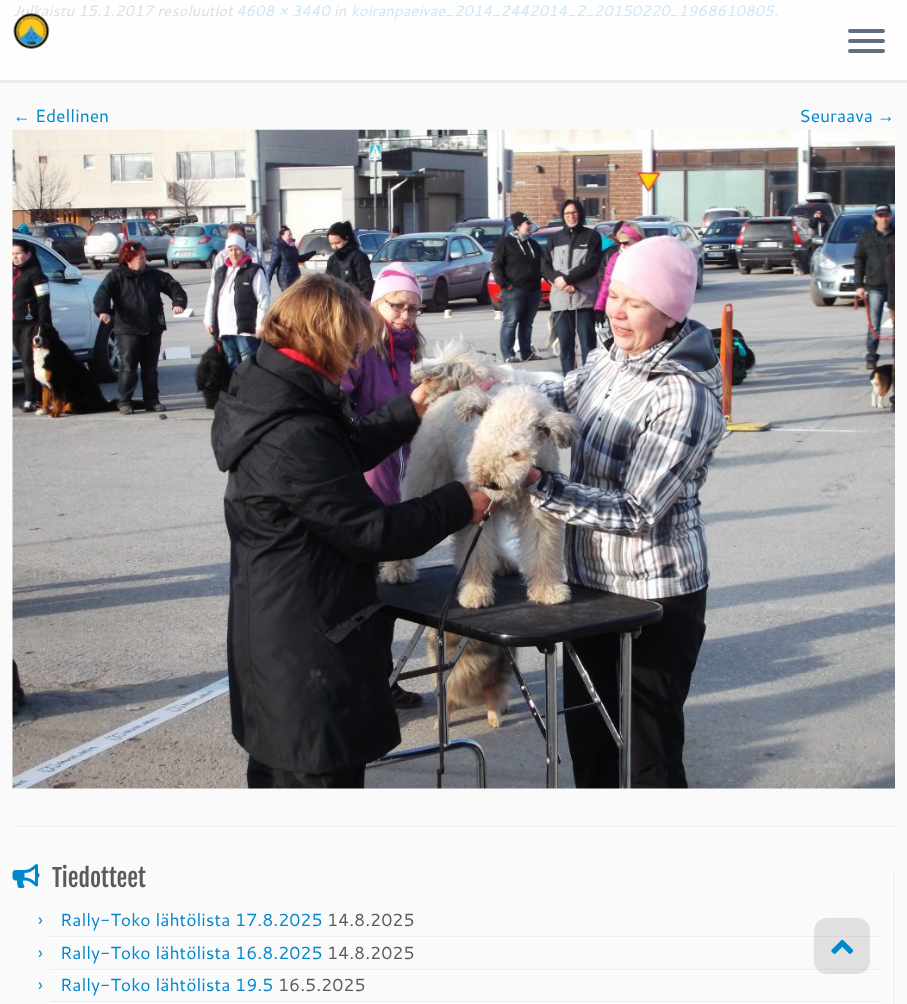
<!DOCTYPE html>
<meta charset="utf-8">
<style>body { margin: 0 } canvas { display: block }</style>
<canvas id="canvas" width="907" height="1004"></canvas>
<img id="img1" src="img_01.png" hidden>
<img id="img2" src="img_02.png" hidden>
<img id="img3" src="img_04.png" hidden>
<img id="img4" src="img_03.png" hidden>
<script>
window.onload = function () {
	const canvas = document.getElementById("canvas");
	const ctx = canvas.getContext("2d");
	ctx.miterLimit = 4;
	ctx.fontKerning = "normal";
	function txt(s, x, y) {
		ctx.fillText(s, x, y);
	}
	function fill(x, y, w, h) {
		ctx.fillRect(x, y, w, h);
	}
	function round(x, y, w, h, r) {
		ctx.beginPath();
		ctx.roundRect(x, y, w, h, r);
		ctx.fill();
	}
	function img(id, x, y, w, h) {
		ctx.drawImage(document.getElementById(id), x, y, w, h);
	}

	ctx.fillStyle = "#FAFAFA";
	fill(0, 0, 907, 1004);
	ctx.fillStyle = "#FEFEFE";
	fill(0, 0, 907, 80);
	img("img1", 12, 129, 883, 660);
	ctx.fillStyle = "#EEEEEE";
	fill(13, 826, 882, 1);
	ctx.fillStyle = "#FFFFFF";
	fill(13, 828, 882, 1);
	ctx.fillStyle = "#EEEEEE";
	fill(894, 866, 1, 138);
	img("img2", 12, 864, 28, 24);
	fill(50, 936, 831, 1);
	ctx.fillStyle = "#FFFFFF";
	fill(50, 938, 831, 1);
	ctx.fillStyle = "#EEEEEE";
	fill(50, 969, 831, 1);
	ctx.fillStyle = "#FFFFFF";
	fill(50, 970, 831, 1);
	ctx.fillStyle = "#EEEEEE";
	fill(50, 1001, 831, 1);
	ctx.fillStyle = "#FFFFFF";
	fill(50, 1003, 831, 1);
	fill(895, 866, 1, 138);
	ctx.fillStyle = "#E9EAEE";
	fill(0, 80, 907, 3);
	ctx.fillStyle = "#5F6F81";
	round(848, 29, 37, 4, 2);
	round(848, 39, 37, 4, 2);
	round(848, 49, 37, 4, 2);
	ctx.fillStyle = "rgba(119, 119, 119, 0.2)";
	round(814, 918, 56, 56, 13);
	img("img3", 831, 939, 23, 15);
	ctx.font = "italic 15px Cantarell";
	ctx.fillStyle = "#DEDEDE";
	txt("Julkaistu 15.1.2017 resoluutiot", 13, 16);
	ctx.fillStyle = "#CCE7F5";
	txt("4608 × 3440", 236, 16);
	ctx.fillStyle = "#DEDEDE";
	txt("in", 334, 16);
	ctx.fillStyle = "#CCE7F5";
	txt("koiranpaeivae_2014_2442014_2_20150220_1968610805", 351, 16);
	ctx.fillStyle = "#DEDEDE";
	txt(".", 774, 16);
	ctx.font = "17.5px Liberation Serif";
	ctx.fillStyle = "#0088CC";
	txt("←", 13, 122);
	ctx.font = "17.5px Cantarell";
	txt("Edellinen", 35, 122);
	txt("Seuraava", 799, 122);
	ctx.font = "17.5px Liberation Serif";
	txt("→", 877, 122);
	ctx.font = "24px Fjalla One";
	ctx.fillStyle = "#5A5A5A";
	txt("Tiedotteet", 52, 887);
	ctx.font = "17.5px Cantarell";
	ctx.fillStyle = "#0088CC";
	txt("›", 38, 926);
	txt("Rally-Toko lähtölista 17.8.2025", 60, 926);
	ctx.fillStyle = "#5A5A5A";
	txt("14.8.2025", 327, 926);
	ctx.fillStyle = "#0088CC";
	txt("›", 38, 959);
	txt("Rally-Toko lähtölista 16.8.2025", 60, 959);
	ctx.fillStyle = "#5A5A5A";
	txt("14.8.2025", 327, 959);
	ctx.fillStyle = "#0088CC";
	txt("›", 38, 991);
	txt("Rally-Toko lähtölista 19.5", 60, 991);
	ctx.fillStyle = "#5A5A5A";
	txt("16.5.2025", 278, 991);
	img("img4", 13, 13, 37, 36);
};
</script>
